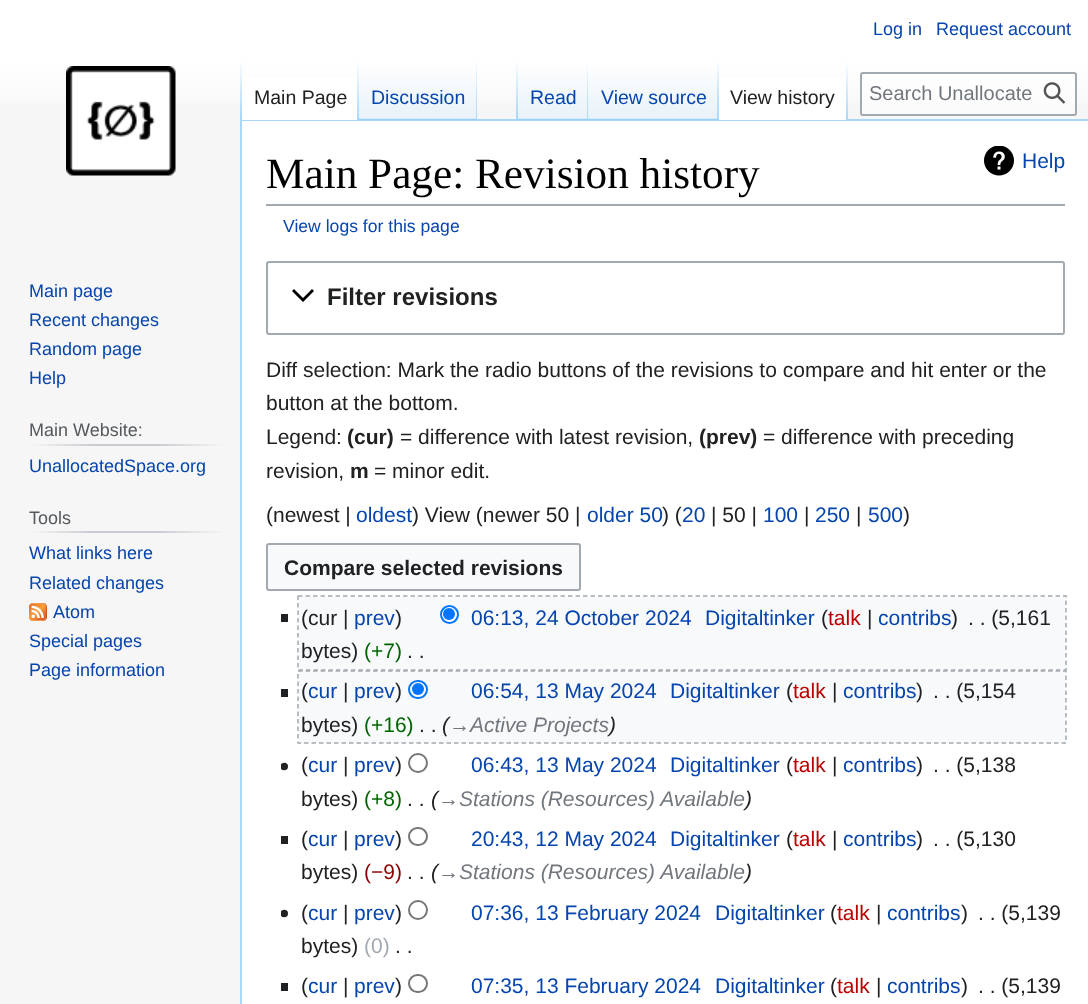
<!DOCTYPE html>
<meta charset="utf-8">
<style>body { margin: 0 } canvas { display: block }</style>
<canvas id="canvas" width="1088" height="1004"></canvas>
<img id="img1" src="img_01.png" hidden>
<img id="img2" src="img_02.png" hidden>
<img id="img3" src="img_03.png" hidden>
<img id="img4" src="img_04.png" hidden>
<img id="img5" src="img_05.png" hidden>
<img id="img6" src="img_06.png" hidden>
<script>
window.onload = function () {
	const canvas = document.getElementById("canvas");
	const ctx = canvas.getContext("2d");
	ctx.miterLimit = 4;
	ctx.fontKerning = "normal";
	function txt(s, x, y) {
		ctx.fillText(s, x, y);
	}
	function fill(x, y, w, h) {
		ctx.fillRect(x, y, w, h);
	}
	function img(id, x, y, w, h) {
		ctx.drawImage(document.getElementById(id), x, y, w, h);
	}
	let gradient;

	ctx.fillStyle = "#F6F6F6";
	fill(0, 0, 1088, 1004);
	gradient = ctx.createLinearGradient(545, 0, 545, 120);
	gradient.addColorStop(0.5, "#FFFFFF");
	gradient.addColorStop(1, "#F6F6F6");
	ctx.fillStyle = gradient;
	fill(0, 0, 1088, 103);
	ctx.fillStyle = "#A7D7F9";
	fill(240, 119, 848, 2);
	fill(240, 119, 2, 885);
	gradient = ctx.createLinearGradient(241, 60, 241, 120);
	gradient.addColorStop(0, "rgba(167, 215, 249, 0)");
	gradient.addColorStop(1, "#A7D7F9");
	ctx.fillStyle = gradient;
	fill(240, 60, 2, 60);
	ctx.fillStyle = "#FFFFFF";
	fill(242, 77, 115, 43);
	gradient = ctx.createLinearGradient(358, 60, 358, 120);
	gradient.addColorStop(0, "#FFFFFF");
	gradient.addColorStop(1, "#A7D7F9");
	ctx.fillStyle = gradient;
	fill(357, 60, 2, 60);
	gradient = ctx.createLinearGradient(418, 120, 418, 60);
	gradient.addColorStop(0, "#77C1F6");
	gradient.addColorStop(0.03, "#E8F2F8");
	gradient.addColorStop(1, "#FFFFFF");
	ctx.fillStyle = gradient;
	fill(359, 69, 118, 51);
	gradient = ctx.createLinearGradient(476, 60, 476, 120);
	gradient.addColorStop(0, "rgba(167, 215, 249, 0)");
	gradient.addColorStop(1, "#A7D7F9");
	ctx.fillStyle = gradient;
	fill(476, 60, 1, 60);
	gradient = ctx.createLinearGradient(517, 60, 517, 120);
	gradient.addColorStop(0, "rgba(167, 215, 249, 0)");
	gradient.addColorStop(1, "#A7D7F9");
	ctx.fillStyle = gradient;
	fill(516, 60, 2, 60);
	gradient = ctx.createLinearGradient(553, 120, 553, 60);
	gradient.addColorStop(0, "#77C1F6");
	gradient.addColorStop(0.03, "#E8F2F8");
	gradient.addColorStop(1, "#FFFFFF");
	ctx.fillStyle = gradient;
	fill(518, 69, 70, 51);
	gradient = ctx.createLinearGradient(587, 60, 587, 120);
	gradient.addColorStop(0, "rgba(167, 215, 249, 0)");
	gradient.addColorStop(1, "#A7D7F9");
	ctx.fillStyle = gradient;
	fill(587, 60, 1, 60);
	gradient = ctx.createLinearGradient(653, 120, 653, 60);
	gradient.addColorStop(0, "#77C1F6");
	gradient.addColorStop(0.03, "#E8F2F8");
	gradient.addColorStop(1, "#FFFFFF");
	ctx.fillStyle = gradient;
	fill(588, 69, 131, 51);
	gradient = ctx.createLinearGradient(718, 60, 718, 120);
	gradient.addColorStop(0, "rgba(167, 215, 249, 0)");
	gradient.addColorStop(1, "#A7D7F9");
	ctx.fillStyle = gradient;
	fill(717, 60, 2, 60);
	ctx.fillStyle = "#FFFFFF";
	fill(719, 77, 127, 43);
	gradient = ctx.createLinearGradient(847, 60, 847, 120);
	gradient.addColorStop(0, "#FFFFFF");
	gradient.addColorStop(1, "#A7D7F9");
	ctx.fillStyle = gradient;
	fill(846, 60, 2, 60);
	ctx.fillStyle = "rgba(255, 255, 255, 0.5)";
	ctx.beginPath();
	ctx.roundRect(861, 73, 215, 42, 2);
	ctx.fill();
	ctx.strokeStyle = "#A2A9B1";
	ctx.lineWidth = 2;
	ctx.stroke();
	img("img1", 1043, 82, 23, 22);
	img("img2", 66, 66, 110, 110);
	gradient = ctx.createLinearGradient(29, 445, 225, 445);
	gradient.addColorStop(0, "#F6F6F6");
	gradient.addColorStop(0.33, "#C8CCD1");
	gradient.addColorStop(0.66, "#C8CCD1");
	gradient.addColorStop(1, "#F6F6F6");
	ctx.fillStyle = gradient;
	fill(29, 444, 196, 2);
	gradient = ctx.createLinearGradient(29, 532, 225, 532);
	gradient.addColorStop(0, "#F6F6F6");
	gradient.addColorStop(0.33, "#C8CCD1");
	gradient.addColorStop(0.66, "#C8CCD1");
	gradient.addColorStop(1, "#F6F6F6");
	ctx.fillStyle = gradient;
	fill(29, 531, 196, 2);
	img("img3", 29, 603, 18, 18);
	ctx.fillStyle = "#FFFFFF";
	fill(242, 121, 846, 883);
	ctx.fillStyle = "#A2A9B1";
	fill(266, 204, 799, 2);
	img("img4", 984, 146, 30, 30);
	ctx.beginPath();
	ctx.roundRect(267, 262, 797, 72, 2);
	ctx.stroke();
	ctx.fillStyle = "#000000";
	ctx.beginPath();
	ctx.moveTo(312, 289);
	ctx.lineTo(303, 298);
	ctx.lineTo(294, 289);
	ctx.lineTo(292, 291);
	ctx.lineTo(303, 302);
	ctx.lineTo(314, 291);
	ctx.closePath();
	ctx.fill();
	ctx.fillStyle = "#F8F9FA";
	ctx.beginPath();
	ctx.roundRect(267, 544, 313, 46, 2);
	ctx.fill();
	ctx.stroke();
	fill(299, 597, 766, 72);
	ctx.fillStyle = "#202122";
	fill(281, 614, 7, 8);
	ctx.fillStyle = "#FFFFFF";
	ctx.beginPath();
	ctx.arc(449.5, 614.5, 8.5, 0, Math.PI * 2);
	ctx.fill();
	ctx.strokeStyle = "#0075FF";
	ctx.stroke();
	ctx.fillStyle = "#0075FF";
	ctx.beginPath();
	ctx.arc(449, 614, 6, 0, Math.PI * 2);
	ctx.fill();
	ctx.fillStyle = "#F8F9FA";
	fill(299, 672, 766, 71);
	ctx.fillStyle = "#202122";
	fill(281, 689, 7, 8);
	ctx.fillStyle = "#FFFFFF";
	ctx.beginPath();
	ctx.roundRect(409, 681, 18, 17, 8.5);
	ctx.fill();
	ctx.stroke();
	ctx.fillStyle = "#0075FF";
	ctx.beginPath();
	ctx.arc(418, 689, 6, 0, Math.PI * 2);
	ctx.fill();
	img("img5", 281, 762, 7, 9);
	ctx.beginPath();
	ctx.arc(418, 763, 9, 0, Math.PI * 2);
	ctx.strokeStyle = "#767676";
	ctx.stroke();
	ctx.fillStyle = "#202122";
	fill(281, 836, 7, 8);
	ctx.beginPath();
	ctx.roundRect(409, 828, 18, 17, 8.5);
	ctx.stroke();
	img("img6", 281, 909, 7, 9);
	ctx.beginPath();
	ctx.arc(418, 910, 9, 0, Math.PI * 2);
	ctx.stroke();
	fill(281, 983, 7, 8);
	ctx.beginPath();
	ctx.roundRect(409, 975, 18, 17, 8.5);
	ctx.stroke();
	ctx.font = "18px Liberation Sans";
	ctx.fillStyle = "#0645AD";
	txt("Log in", 873, 35);
	txt("Request account", 936, 35);
	ctx.font = "19.5px Liberation Sans";
	ctx.fillStyle = "#202122";
	txt("Main Page", 254, 104);
	ctx.fillStyle = "#0645AD";
	txt("Discussion", 371, 104);
	txt("Read", 530, 104);
	txt("View source", 601, 104);
	ctx.fillStyle = "#202122";
	txt("View history", 730, 104);
	ctx.font = "20px Liberation Sans";
	ctx.fillStyle = "#72777D";
	txt("Search Unallocate", 869, 100);
	ctx.font = "18px Liberation Sans";
	ctx.fillStyle = "#0645AD";
	txt("Main page", 29, 297);
	txt("Recent changes", 29, 326);
	txt("Random page", 29, 355);
	txt("Help", 29, 384);
	ctx.fillStyle = "#54595D";
	txt("Main Website:", 29, 436);
	ctx.fillStyle = "#0645AD";
	txt("UnallocatedSpace.org", 29, 472);
	ctx.fillStyle = "#54595D";
	txt("Tools", 29, 524);
	ctx.fillStyle = "#0645AD";
	txt("What links here", 29, 559);
	txt("Related changes", 29, 589);
	txt("Atom", 53, 618);
	txt("Special pages", 29, 647);
	txt("Page information", 29, 676);
	ctx.font = "43.25px Liberation Serif";
	ctx.fillStyle = "#000000";
	txt("Main Page: Revision history", 266, 188);
	ctx.font = "21px Liberation Sans";
	ctx.fillStyle = "#0645AD";
	txt("Help", 1022, 168);
	ctx.font = "17.6px Liberation Sans";
	txt("View logs for this page", 283, 232);
	ctx.font = "bold 24px Liberation Sans";
	ctx.fillStyle = "#202122";
	txt("Filter revisions", 327, 305);
	ctx.font = "21px Liberation Sans";
	txt("Diff selection: Mark the radio buttons of the revisions to compare and hit enter or the", 266, 377);
	txt("button at the bottom.", 266, 410);
	txt("Legend:", 266, 444);
	ctx.font = "bold 21px Liberation Sans";
	txt("(cur)", 347, 444);
	ctx.font = "21px Liberation Sans";
	txt("= difference with latest revision,", 400, 444);
	ctx.font = "bold 21px Liberation Sans";
	txt("(prev)", 699, 444);
	ctx.font = "21px Liberation Sans";
	txt("= difference with preceding", 763, 444);
	txt("revision,", 266, 478);
	ctx.font = "bold 21px Liberation Sans";
	txt("m", 350, 478);
	ctx.font = "21px Liberation Sans";
	txt("= minor edit.", 374, 478);
	txt("(newest |", 266, 522);
	ctx.fillStyle = "#0645AD";
	txt("oldest", 356, 522);
	ctx.fillStyle = "#202122";
	txt(") View (newer 50 |", 412, 522);
	ctx.fillStyle = "#0645AD";
	txt("older 50", 587, 522);
	ctx.fillStyle = "#202122";
	txt(") (", 662, 522);
	ctx.fillStyle = "#0645AD";
	txt("20", 682, 522);
	ctx.fillStyle = "#202122";
	txt("| 50 |", 711, 522);
	ctx.fillStyle = "#0645AD";
	txt("100", 763, 522);
	ctx.fillStyle = "#202122";
	txt("|", 804, 522);
	ctx.fillStyle = "#0645AD";
	txt("250", 815, 522);
	ctx.fillStyle = "#202122";
	txt("|", 856, 522);
	ctx.fillStyle = "#0645AD";
	txt("500", 868, 522);
	ctx.fillStyle = "#202122";
	txt(")", 903, 522);
	ctx.font = "bold 21px Liberation Sans";
	txt("Compare selected revisions", 284, 575);
	ctx.font = "21px Liberation Sans";
	txt("(cur |", 301, 625);
	ctx.fillStyle = "#0645AD";
	txt("prev", 354, 625);
	ctx.fillStyle = "#202122";
	txt(")", 395, 625);
	ctx.fillStyle = "#0645AD";
	txt("06:13, 24 October 2024", 471, 625);
	txt("Digitaltinker", 705, 625);
	ctx.fillStyle = "#202122";
	txt("(", 821, 625);
	ctx.fillStyle = "#BA0000";
	txt("talk", 828, 625);
	ctx.fillStyle = "#202122";
	txt("|", 867, 625);
	ctx.fillStyle = "#0645AD";
	txt("contribs", 878, 625);
	ctx.fillStyle = "#202122";
	txt(")", 951, 625);
	txt(". . (5,161", 968, 625);
	txt("bytes)", 301, 658);
	ctx.fillStyle = "#006400";
	txt("(+7)", 364, 658);
	ctx.fillStyle = "#202122";
	txt(". .", 407, 658);
	ctx.beginPath();
	ctx.moveTo(298, 596);
	ctx.lineTo(1066, 596);
	ctx.lineTo(1066, 670);
	ctx.lineTo(298, 670);
	ctx.closePath();
	ctx.strokeStyle = "#A2A9B1";
	ctx.lineWidth = 1.5;
	ctx.setLineDash([4.5, 3]);
	ctx.stroke();
	txt("(", 301, 698);
	ctx.fillStyle = "#0645AD";
	txt("cur", 308, 698);
	ctx.fillStyle = "#202122";
	txt("|", 343, 698);
	ctx.fillStyle = "#0645AD";
	txt("prev", 354, 698);
	ctx.fillStyle = "#202122";
	txt(")", 395, 698);
	ctx.fillStyle = "#0645AD";
	txt("06:54, 13 May 2024", 471, 698);
	txt("Digitaltinker", 670, 698);
	ctx.fillStyle = "#202122";
	txt("(", 786, 698);
	ctx.fillStyle = "#BA0000";
	txt("talk", 793, 698);
	ctx.fillStyle = "#202122";
	txt("|", 832, 698);
	ctx.fillStyle = "#0645AD";
	txt("contribs", 843, 698);
	ctx.fillStyle = "#202122";
	txt(")", 916, 698);
	txt(". . (5,154", 933, 698);
	txt("bytes)", 301, 732);
	ctx.fillStyle = "#006400";
	txt("(+16)", 364, 732);
	ctx.fillStyle = "#202122";
	txt(". .", 419, 732);
	ctx.font = "italic 21px Liberation Sans";
	txt("(", 442, 732);
	ctx.fillStyle = "#72777D";
	txt("→Active Projects", 449, 732);
	ctx.fillStyle = "#202122";
	txt(")", 609, 732);
	ctx.beginPath();
	ctx.moveTo(298, 671);
	ctx.lineTo(1066, 671);
	ctx.lineTo(1066, 743);
	ctx.lineTo(298, 743);
	ctx.closePath();
	ctx.stroke();
	ctx.font = "21px Liberation Sans";
	txt("(", 301, 772);
	ctx.fillStyle = "#0645AD";
	txt("cur", 308, 772);
	ctx.fillStyle = "#202122";
	txt("|", 343, 772);
	ctx.fillStyle = "#0645AD";
	txt("prev", 354, 772);
	ctx.fillStyle = "#202122";
	txt(")", 395, 772);
	ctx.fillStyle = "#0645AD";
	txt("06:43, 13 May 2024", 471, 772);
	txt("Digitaltinker", 670, 772);
	ctx.fillStyle = "#202122";
	txt("(", 786, 772);
	ctx.fillStyle = "#BA0000";
	txt("talk", 793, 772);
	ctx.fillStyle = "#202122";
	txt("|", 832, 772);
	ctx.fillStyle = "#0645AD";
	txt("contribs", 843, 772);
	ctx.fillStyle = "#202122";
	txt(")", 916, 772);
	txt(". . (5,138", 933, 772);
	txt("bytes)", 301, 806);
	ctx.fillStyle = "#006400";
	txt("(+8)", 364, 806);
	ctx.fillStyle = "#202122";
	txt(". .", 407, 806);
	ctx.font = "italic 21px Liberation Sans";
	txt("(", 431, 806);
	ctx.fillStyle = "#72777D";
	txt("→Stations (Resources) Available", 438, 806);
	ctx.fillStyle = "#202122";
	txt(")", 745, 806);
	ctx.font = "21px Liberation Sans";
	txt("(", 301, 846);
	ctx.fillStyle = "#0645AD";
	txt("cur", 308, 846);
	ctx.fillStyle = "#202122";
	txt("|", 343, 846);
	ctx.fillStyle = "#0645AD";
	txt("prev", 354, 846);
	ctx.fillStyle = "#202122";
	txt(")", 395, 846);
	ctx.fillStyle = "#0645AD";
	txt("20:43, 12 May 2024", 471, 846);
	txt("Digitaltinker", 670, 846);
	ctx.fillStyle = "#202122";
	txt("(", 786, 846);
	ctx.fillStyle = "#BA0000";
	txt("talk", 793, 846);
	ctx.fillStyle = "#202122";
	txt("|", 832, 846);
	ctx.fillStyle = "#0645AD";
	txt("contribs", 843, 846);
	ctx.fillStyle = "#202122";
	txt(")", 916, 846);
	txt(". . (5,130", 933, 846);
	txt("bytes)", 301, 879);
	ctx.fillStyle = "#8B0000";
	txt("(−9)", 364, 879);
	ctx.fillStyle = "#202122";
	txt(". .", 407, 879);
	ctx.font = "italic 21px Liberation Sans";
	txt("(", 431, 879);
	ctx.fillStyle = "#72777D";
	txt("→Stations (Resources) Available", 438, 879);
	ctx.fillStyle = "#202122";
	txt(")", 745, 879);
	ctx.font = "21px Liberation Sans";
	txt("(", 301, 920);
	ctx.fillStyle = "#0645AD";
	txt("cur", 308, 920);
	ctx.fillStyle = "#202122";
	txt("|", 343, 920);
	ctx.fillStyle = "#0645AD";
	txt("prev", 354, 920);
	ctx.fillStyle = "#202122";
	txt(")", 395, 920);
	ctx.fillStyle = "#0645AD";
	txt("07:36, 13 February 2024", 471, 920);
	txt("Digitaltinker", 715, 920);
	ctx.fillStyle = "#202122";
	txt("(", 830, 920);
	ctx.fillStyle = "#BA0000";
	txt("talk", 837, 920);
	ctx.fillStyle = "#202122";
	txt("|", 876, 920);
	ctx.fillStyle = "#0645AD";
	txt("contribs", 887, 920);
	ctx.fillStyle = "#202122";
	txt(")", 961, 920);
	txt(". . (5,139", 978, 920);
	txt("bytes)", 301, 953);
	ctx.fillStyle = "#A2A9B1";
	txt("(0)", 364, 953);
	ctx.fillStyle = "#202122";
	txt(". .", 395, 953);
	txt("(", 301, 993);
	ctx.fillStyle = "#0645AD";
	txt("cur", 308, 993);
	ctx.fillStyle = "#202122";
	txt("|", 343, 993);
	ctx.fillStyle = "#0645AD";
	txt("prev", 354, 993);
	ctx.fillStyle = "#202122";
	txt(")", 395, 993);
	ctx.fillStyle = "#0645AD";
	txt("07:35, 13 February 2024", 471, 993);
	txt("Digitaltinker", 715, 993);
	ctx.fillStyle = "#202122";
	txt("(", 830, 993);
	ctx.fillStyle = "#BA0000";
	txt("talk", 837, 993);
	ctx.fillStyle = "#202122";
	txt("|", 876, 993);
	ctx.fillStyle = "#0645AD";
	txt("contribs", 887, 993);
	ctx.fillStyle = "#202122";
	txt(")", 961, 993);
	txt(". . (5,139", 978, 993);
};
</script>
